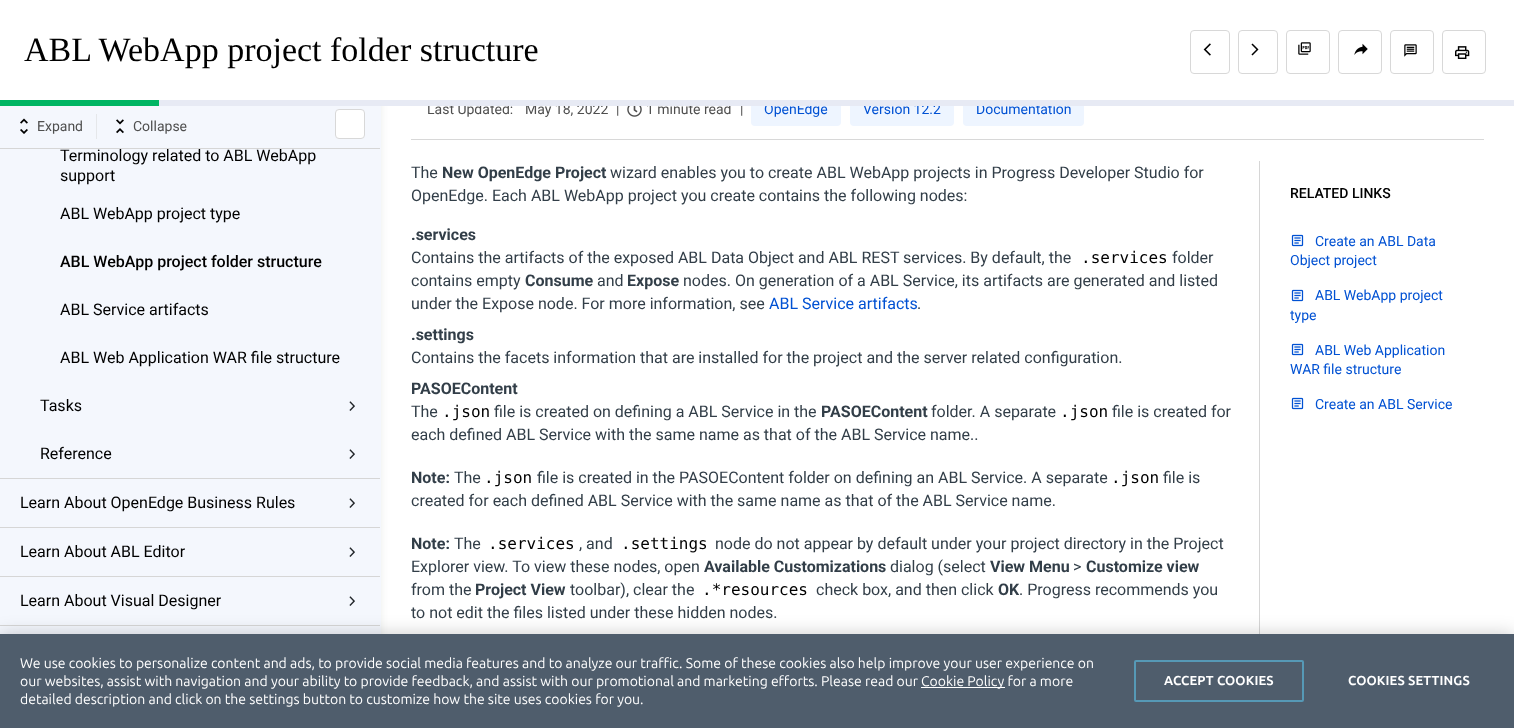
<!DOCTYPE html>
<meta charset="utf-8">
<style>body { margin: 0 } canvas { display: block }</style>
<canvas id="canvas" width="1514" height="728"></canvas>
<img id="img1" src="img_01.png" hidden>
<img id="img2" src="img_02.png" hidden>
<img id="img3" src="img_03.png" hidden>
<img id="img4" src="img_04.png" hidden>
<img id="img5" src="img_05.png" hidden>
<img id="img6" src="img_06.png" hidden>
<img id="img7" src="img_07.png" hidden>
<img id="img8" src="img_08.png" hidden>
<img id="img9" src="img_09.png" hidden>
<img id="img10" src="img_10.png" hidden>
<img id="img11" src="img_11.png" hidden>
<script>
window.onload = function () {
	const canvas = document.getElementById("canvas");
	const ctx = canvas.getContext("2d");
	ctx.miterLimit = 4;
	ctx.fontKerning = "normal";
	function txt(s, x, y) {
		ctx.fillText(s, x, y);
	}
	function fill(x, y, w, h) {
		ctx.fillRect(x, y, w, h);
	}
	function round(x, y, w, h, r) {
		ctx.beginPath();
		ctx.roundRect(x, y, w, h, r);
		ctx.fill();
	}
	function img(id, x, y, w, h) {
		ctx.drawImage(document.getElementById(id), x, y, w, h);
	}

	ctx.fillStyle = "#FFFFFF";
	fill(0, 0, 1514, 728);
	ctx.fillStyle = "rgba(181, 183, 179, 0.25)";
	ctx.filter = "blur(4px)";
	ctx.beginPath();
	ctx.rect(0, -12, 381, 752);
	ctx.fill();
	ctx.filter = "none";
	ctx.fillStyle = "#EEF5FF";
	round(751, 92, 90, 34, 4);
	round(850, 92, 104, 34, 4);
	round(963, 92, 121, 34, 4);
	ctx.fillStyle = "#FFFFFF";
	fill(0, 0, 1084, 100);
	ctx.beginPath();
	ctx.roundRect(1190.5, 30.5, 39, 43, 3.5);
	ctx.strokeStyle = "#D8D8D8";
	ctx.stroke();
	img("img1", 1203, 43, 8, 13);
	ctx.beginPath();
	ctx.roundRect(1238.5, 30.5, 39, 43, 3.5);
	ctx.stroke();
	img("img2", 1251, 43, 8, 13);
	ctx.beginPath();
	ctx.roundRect(1286.5, 30.5, 43, 43, 3.5);
	ctx.stroke();
	img("img3", 1298, 42, 13, 13);
	ctx.beginPath();
	ctx.roundRect(1338.5, 30.5, 43, 43, 3.5);
	ctx.stroke();
	img("img4", 1354, 43, 14, 12);
	ctx.beginPath();
	ctx.roundRect(1390.5, 30.5, 43, 43, 3.5);
	ctx.stroke();
	img("img5", 1404, 44, 13, 13);
	ctx.beginPath();
	ctx.roundRect(1442.5, 30.5, 43, 43, 3.5);
	ctx.stroke();
	img("img6", 1455, 46, 15, 13);
	ctx.fillStyle = "#00B563";
	fill(0, 100, 159, 6);
	ctx.fillStyle = "#F4F7FD";
	fill(0, 106, 381, 528);
	ctx.fillStyle = "#D6D6D6";
	fill(0, 148, 380, 1);
	img("img7", 20, 118, 8, 16);
	ctx.fillStyle = "#E5E7EA";
	fill(96, 114, 1, 25);
	img("img8", 116, 119, 8, 15);
	ctx.fillStyle = "#FFFFFF";
	ctx.beginPath();
	ctx.roundRect(335.5, 109.5, 29, 29, 3.5);
	ctx.fill();
	ctx.stroke();
	ctx.fillStyle = "#D6D6D6";
	fill(0, 478, 380, 1);
	img("img9", 349, 401, 6, 10);
	img("img9", 349, 449, 6, 10);
	fill(0, 527, 380, 1);
	img("img9", 349, 498, 6, 10);
	fill(0, 576, 380, 1);
	img("img9", 349, 547, 6, 10);
	fill(0, 625, 380, 1);
	img("img9", 349, 596, 6, 10);
	ctx.fillStyle = "#D8D8D8";
	fill(411, 139, 1073, 1);
	img("img10", 627, 106, 15, 11);
	ctx.fillStyle = "#D6D6D6";
	fill(1259, 161, 1, 473);
	img("img11", 1291, 234, 13, 13);
	img("img11", 1291, 289, 13, 13);
	img("img11", 1291, 343, 13, 13);
	img("img11", 1291, 397, 13, 13);
	ctx.fillStyle = "rgba(0, 0, 0, 0.2)";
	ctx.filter = "blur(9px)";
	ctx.beginPath();
	ctx.rect(0, 634, 1514, 94);
	ctx.fill();
	ctx.filter = "none";
	ctx.fillStyle = "#4F5D6C";
	fill(0, 634, 1514, 94);
	ctx.fillStyle = "#FFFFFF";
	fill(921, 687, 84, 1);
	ctx.beginPath();
	ctx.roundRect(1135, 661, 168, 40, 1);
	ctx.strokeStyle = "#5699B6";
	ctx.lineWidth = 2;
	ctx.stroke();
	ctx.font = "34px Liberation Serif";
	ctx.fillStyle = "#000000";
	txt("ABL WebApp project folder structure", 24, 61);
	ctx.font = "14px Roboto";
	ctx.fillStyle = "#4F4F4F";
	txt("Expand", 37, 131);
	txt("Collapse", 133, 131);
	ctx.font = "16px Roboto";
	ctx.fillStyle = "#000000";
	txt("Terminology related to ABL WebApp", 60, 161);
	txt("support", 60, 181);
	txt("ABL WebApp project type", 60, 219);
	ctx.font = "500 16px Roboto";
	txt("ABL WebApp project folder structure", 60, 267);
	ctx.font = "16px Roboto";
	txt("ABL Service artifacts", 60, 315);
	txt("ABL Web Application WAR file structure", 60, 363);
	txt("Tasks", 40, 411);
	txt("Reference", 40, 459);
	txt("Learn About OpenEdge Business Rules", 20, 508);
	txt("Learn About ABL Editor", 20, 557);
	txt("Learn About Visual Designer", 20, 606);
	ctx.font = "14px Roboto";
	ctx.fillStyle = "#4F4F4F";
	txt("Last Updated:", 427, 114);
	txt("May 18, 2022", 525, 114);
	txt("|", 616, 114);
	txt("1 minute read", 646, 114);
	txt("|", 740, 114);
	ctx.fillStyle = "#0051D3";
	txt("OpenEdge", 764, 114);
	txt("Version 12.2", 863, 114);
	txt("Documentation", 976, 114);
	ctx.fillStyle = "#E7EAF4";
	fill(159, 100, 1355, 6);
	ctx.font = "16px Roboto";
	ctx.fillStyle = "#323E48";
	txt("The", 411, 178);
	ctx.font = "bold 16px Roboto";
	txt("New OpenEdge Project", 442, 178);
	ctx.font = "16px Roboto";
	txt("wizard enables you to create ABL WebApp projects in Progress Developer Studio for", 610, 178);
	txt("OpenEdge. Each ABL WebApp project you create contains the following nodes:", 411, 201);
	ctx.font = "bold 16px Roboto";
	txt(".services", 411, 240);
	ctx.font = "16px Roboto";
	txt("Contains the artifacts of the exposed ABL Data Object and ABL REST services. By default, the", 411, 263);
	ctx.font = "16px DejaVu Sans Mono";
	ctx.fillStyle = "#000000";
	txt(".services", 1081, 263);
	ctx.font = "16px Roboto";
	ctx.fillStyle = "#323E48";
	txt("folder", 1172, 263);
	txt("contains empty", 411, 286);
	ctx.font = "bold 16px Roboto";
	txt("Consume", 525, 286);
	ctx.font = "16px Roboto";
	txt("and", 597, 286);
	ctx.font = "bold 16px Roboto";
	txt("Expose", 627, 286);
	ctx.font = "16px Roboto";
	txt("nodes. On generation of a ABL Service, its artifacts are generated and listed", 683, 286);
	txt("under the Expose node. For more information, see", 411, 309);
	ctx.fillStyle = "#0051D3";
	txt("ABL Service artifacts", 769, 309);
	ctx.fillStyle = "#323E48";
	txt(".", 917, 309);
	ctx.font = "bold 16px Roboto";
	txt(".settings", 411, 340);
	ctx.font = "16px Roboto";
	txt("Contains the facets information that are installed for the project and the server related configuration.", 411, 363);
	ctx.font = "bold 16px Roboto";
	txt("PASOEContent", 411, 394);
	ctx.font = "16px Roboto";
	txt("The", 411, 417);
	ctx.font = "16px DejaVu Sans Mono";
	ctx.fillStyle = "#000000";
	txt(".json", 442, 417);
	ctx.font = "16px Roboto";
	ctx.fillStyle = "#323E48";
	txt("file is created on defining a ABL Service in the", 494, 417);
	ctx.font = "bold 16px Roboto";
	txt("PASOEContent", 821, 417);
	ctx.font = "16px Roboto";
	txt("folder. A separate", 931, 417);
	ctx.font = "16px DejaVu Sans Mono";
	ctx.fillStyle = "#000000";
	txt(".json", 1060, 417);
	ctx.font = "16px Roboto";
	ctx.fillStyle = "#323E48";
	txt("file is created for", 1112, 417);
	txt("each defined ABL Service with the same name as that of the ABL Service name..", 411, 440);
	ctx.font = "bold 16px Roboto";
	txt("Note:", 411, 483);
	ctx.font = "16px Roboto";
	txt("The", 454, 483);
	ctx.font = "16px DejaVu Sans Mono";
	ctx.fillStyle = "#000000";
	txt(".json", 484, 483);
	ctx.font = "16px Roboto";
	ctx.fillStyle = "#323E48";
	txt("file is created in the PASOEContent folder on defining an ABL Service. A separate", 537, 483);
	ctx.font = "16px DejaVu Sans Mono";
	ctx.fillStyle = "#000000";
	txt(".json", 1111, 483);
	ctx.font = "16px Roboto";
	ctx.fillStyle = "#323E48";
	txt("file is", 1163, 483);
	txt("created for each defined ABL Service with the same name as that of the ABL Service name.", 411, 506);
	ctx.font = "bold 16px Roboto";
	txt("Note:", 411, 549);
	ctx.font = "16px Roboto";
	txt("The", 454, 549);
	ctx.font = "16px DejaVu Sans Mono";
	ctx.fillStyle = "#000000";
	txt(".services", 488, 549);
	ctx.font = "16px Roboto";
	ctx.fillStyle = "#323E48";
	txt(", and", 579, 549);
	ctx.font = "16px DejaVu Sans Mono";
	ctx.fillStyle = "#000000";
	txt(".settings", 621, 549);
	ctx.font = "16px Roboto";
	ctx.fillStyle = "#323E48";
	txt("node do not appear by default under your project directory in the Project", 715, 549);
	txt("Explorer view. To view these nodes, open", 411, 572);
	ctx.font = "bold 16px Roboto";
	txt("Available Customizations", 704, 572);
	ctx.font = "16px Roboto";
	txt("dialog (select", 890, 572);
	ctx.font = "bold 16px Roboto";
	txt("View Menu", 990, 572);
	ctx.font = "16px Roboto";
	txt(">", 1073, 572);
	ctx.font = "bold 16px Roboto";
	txt("Customize view", 1086, 572);
	ctx.font = "16px Roboto";
	txt("from the", 411, 595);
	ctx.font = "bold 16px Roboto";
	txt("Project View", 475, 595);
	ctx.font = "16px Roboto";
	txt("toolbar), clear the", 570, 595);
	ctx.font = "16px DejaVu Sans Mono";
	ctx.fillStyle = "#000000";
	txt(".*resources", 702, 595);
	ctx.font = "16px Roboto";
	ctx.fillStyle = "#323E48";
	txt("check box, and then click", 816, 595);
	ctx.font = "bold 16px Roboto";
	txt("OK", 998, 595);
	ctx.font = "16px Roboto";
	txt(". Progress recommends you", 1019, 595);
	txt("to not edit the files listed under these hidden nodes.", 411, 618);
	ctx.font = "500 14px Roboto";
	ctx.fillStyle = "#000000";
	txt("RELATED LINKS", 1290, 198);
	ctx.font = "14px Roboto";
	ctx.fillStyle = "#0051D3";
	txt("Create an ABL Data", 1315, 246);
	txt("Object project", 1290, 265);
	txt("ABL WebApp project", 1315, 300);
	txt("type", 1290, 320);
	txt("ABL Web Application", 1315, 355);
	txt("WAR file structure", 1290, 374);
	txt("Create an ABL Service", 1315, 409);
	ctx.font = "14px Ubuntu";
	ctx.fillStyle = "#FFFFFF";
	txt("We use cookies to personalize content and ads, to provide social media features and to analyze our traffic. Some of these cookies also help improve your user experience on", 20, 668);
	txt("our websites, assist with navigation and your ability to provide feedback, and assist with our promotional and marketing efforts. Please read our", 20, 686);
	txt("Cookie Policy for a more", 921, 686);
	txt("detailed description and click on the settings button to customize how the site uses cookies for you.", 20, 704);
	ctx.letterSpacing = "0.1px";
	ctx.font = "bold 13px Ubuntu";
	txt("ACCEPT COOKIES", 1164, 685);
	txt("COOKIES SETTINGS", 1348, 685);
};
</script>
